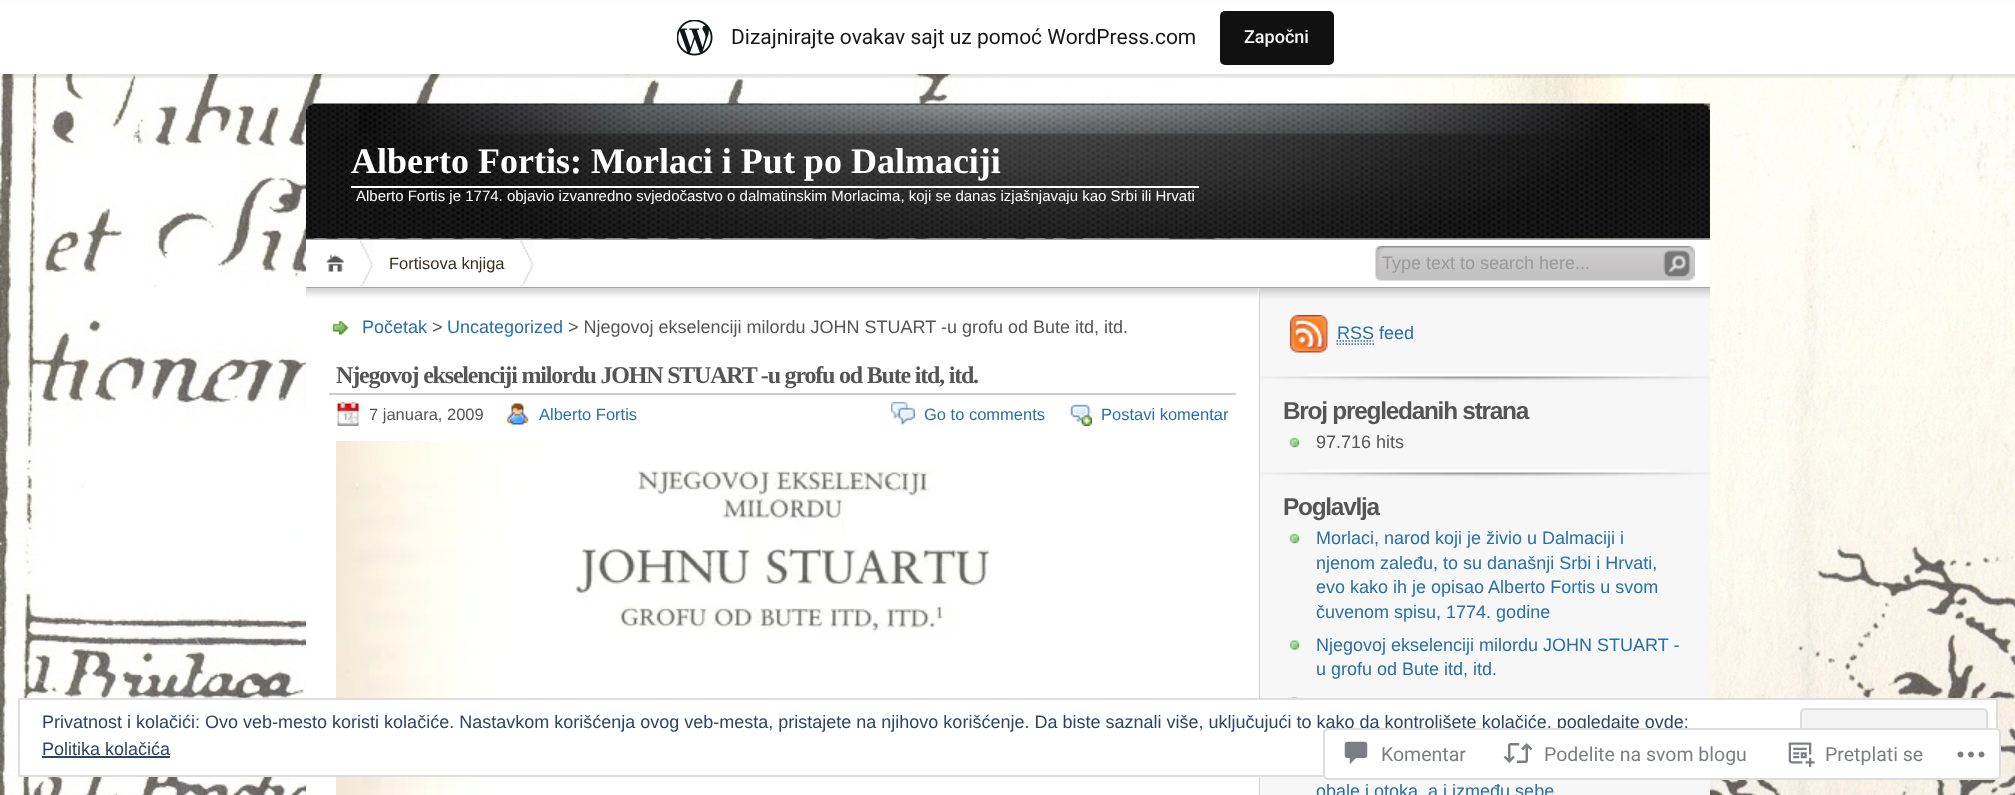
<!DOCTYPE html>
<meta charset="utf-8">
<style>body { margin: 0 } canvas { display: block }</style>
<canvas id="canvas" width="2015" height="795"></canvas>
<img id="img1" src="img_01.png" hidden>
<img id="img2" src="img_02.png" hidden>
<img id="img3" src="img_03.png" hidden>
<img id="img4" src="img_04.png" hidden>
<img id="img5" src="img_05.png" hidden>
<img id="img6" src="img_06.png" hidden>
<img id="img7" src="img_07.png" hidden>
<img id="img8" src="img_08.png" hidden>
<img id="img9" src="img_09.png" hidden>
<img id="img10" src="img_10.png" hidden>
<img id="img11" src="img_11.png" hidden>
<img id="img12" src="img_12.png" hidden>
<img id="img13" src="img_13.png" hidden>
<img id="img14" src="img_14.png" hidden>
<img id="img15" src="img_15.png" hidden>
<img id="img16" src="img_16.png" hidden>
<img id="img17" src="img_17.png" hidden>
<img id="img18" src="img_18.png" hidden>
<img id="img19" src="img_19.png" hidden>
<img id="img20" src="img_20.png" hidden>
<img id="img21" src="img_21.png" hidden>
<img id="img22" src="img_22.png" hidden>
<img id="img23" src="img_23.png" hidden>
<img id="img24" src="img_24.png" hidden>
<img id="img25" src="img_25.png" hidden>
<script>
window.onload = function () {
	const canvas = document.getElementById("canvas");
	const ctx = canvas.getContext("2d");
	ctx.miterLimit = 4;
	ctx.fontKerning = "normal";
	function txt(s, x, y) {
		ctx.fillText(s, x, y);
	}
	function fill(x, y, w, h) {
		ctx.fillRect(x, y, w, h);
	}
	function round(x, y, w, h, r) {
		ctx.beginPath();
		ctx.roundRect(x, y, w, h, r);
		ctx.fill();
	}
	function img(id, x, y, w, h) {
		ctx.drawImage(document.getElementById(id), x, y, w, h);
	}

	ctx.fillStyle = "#FFFFFF";
	fill(0, 0, 2015, 795);
	img("img1", 0, 74, 2015, 721);
	ctx.fillStyle = "rgba(0, 0, 0, 0.05)";
	ctx.filter = "blur(1.5px)";
	ctx.beginPath();
	ctx.rect(0, 2, 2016, 73);
	ctx.fill();
	ctx.filter = "none";
	ctx.fillStyle = "rgba(0, 0, 0, 0.08)";
	ctx.beginPath();
	ctx.moveTo(2, 74);
	ctx.lineTo(2, 78);
	ctx.lineTo(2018, 78);
	ctx.lineTo(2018, 5);
	ctx.lineTo(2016, 5);
	ctx.lineTo(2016, 74);
	ctx.closePath();
	ctx.fill();
	ctx.fillStyle = "#FFFFFF";
	fill(0, 1, 2015, 73);
	img("img2", 677, 20, 36, 36);
	ctx.fillStyle = "#111111";
	round(1220, 11, 114, 54, 5);
	img("img3", 306, 103, 1404, 136);
	ctx.fillStyle = "#A6A6A6";
	fill(306, 239, 1404, 1);
	ctx.fillStyle = "#FFFFFF";
	fill(351, 186, 848, 2);
	fill(306, 240, 1404, 47);
	ctx.fillStyle = "#A6A6A6";
	fill(306, 287, 1404, 1);
	img("img4", 326, 254, 18, 18);
	img("img5", 359, 240, 15, 47);
	img("img6", 520, 240, 15, 47);
	img("img7", 1375, 246, 320, 35);
	img("img8", 1259, 288, 1, 507);
	ctx.fillStyle = "#FFFFFF";
	fill(306, 288, 953, 507);
	img("img9", 306, 288, 953, 10);
	img("img10", 332, 320, 17, 16);
	ctx.fillStyle = "#CCCCCC";
	fill(329, 393, 907, 2);
	img("img11", 337, 402, 22, 24);
	img("img12", 506, 403, 23, 22);
	img("img13", 891, 402, 24, 23);
	img("img14", 1069, 404, 23, 22);
	img("img15", 336, 441, 654, 354);
	ctx.fillStyle = "#F7F7F7";
	fill(1260, 299, 450, 496);
	img("img16", 1260, 288, 450, 11);
	img("img17", 1260, 373, 450, 10);
	img("img18", 1290, 315, 38, 38);
	ctx.beginPath();
	ctx.moveTo(1336.5, 344);
	ctx.lineTo(1374, 344);
	ctx.moveTo(1336.5, 341);
	ctx.lineTo(1373.5, 341);
	ctx.strokeStyle = "#2970A6";
	ctx.lineWidth = 1.5;
	ctx.setLineDash([1.5, 1.5]);
	ctx.stroke();
	img("img17", 1260, 469, 450, 10);
	img("img19", 1289, 437, 11, 11);
	img("img19", 1289, 533, 11, 11);
	img("img20", 1289, 640, 11, 10);
	img("img21", 1289, 697, 11, 1);
	ctx.fillStyle = "#FFFFFF";
	ctx.beginPath();
	ctx.rect(19, 699, 1978, 77);
	ctx.fill();
	ctx.strokeStyle = "#DEDEDE";
	ctx.lineWidth = 2;
	ctx.setLineDash([]);
	ctx.stroke();
	ctx.fillStyle = "#F3F3F3";
	ctx.beginPath();
	ctx.roundRect(1801, 709, 186, 57, 4);
	ctx.fill();
	ctx.stroke();
	ctx.fillStyle = "#2E4467";
	fill(42, 756, 128, 2);
	ctx.font = "21px Roboto";
	ctx.fillStyle = "#171717";
	txt("Dizajnirajte ovakav sajt uz pomoć WordPress.com", 731, 44);
	ctx.font = "500 18px Roboto";
	ctx.fillStyle = "#F6F7F7";
	txt("Započni", 1244, 43);
	ctx.font = "bold 36px Liberation Serif";
	ctx.fillStyle = "#FFFFFF";
	txt("Alberto Fortis: Morlaci i Put po Dalmaciji", 351, 173);
	ctx.font = "15px Liberation Sans";
	txt("Alberto Fortis je 1774. objavio izvanredno svjedočastvo o dalmatinskim Morlacima, koji se danas izjašnjavaju kao Srbi ili Hrvati", 356, 201);
	ctx.font = "16.5px Liberation Sans";
	ctx.fillStyle = "#382E1F";
	txt("Fortisova knjiga", 389, 269);
	ctx.font = "18px Liberation Sans";
	ctx.fillStyle = "#999999";
	txt("Type text to search here...", 1382, 269);
	ctx.fillStyle = "#2970A6";
	txt("Početak", 362, 333);
	ctx.fillStyle = "#555555";
	txt(">", 432, 333);
	ctx.fillStyle = "#2970A6";
	txt("Uncategorized", 447, 333);
	ctx.fillStyle = "#555555";
	txt("> Njegovoj ekselenciji milordu JOHN STUART -u grofu od Bute itd, itd.", 568, 333);
	ctx.letterSpacing = "-1.2px";
	ctx.font = "bold 24px Liberation Serif";
	txt("Njegovoj ekselenciji milordu JOHN STUART -u grofu od Bute itd, itd.", 336, 383);
	ctx.letterSpacing = "0px";
	ctx.font = "16.5px Liberation Sans";
	txt("7 januara, 2009", 369, 420);
	ctx.fillStyle = "#2970A6";
	txt("Alberto Fortis", 539, 420);
	txt("Go to comments", 924, 420);
	txt("Postavi komentar", 1101, 420);
	ctx.font = "18px Liberation Sans";
	txt("RSS feed", 1337, 339);
	ctx.letterSpacing = "-1.25px";
	ctx.font = "bold 24.4px Liberation Sans";
	ctx.fillStyle = "#555555";
	txt("Broj pregledanih strana", 1283, 419);
	ctx.letterSpacing = "0px";
	ctx.font = "18px Liberation Sans";
	txt("97.716 hits", 1316, 448);
	ctx.letterSpacing = "-1.25px";
	ctx.font = "bold 24.4px Liberation Sans";
	txt("Poglavlja", 1283, 515);
	ctx.letterSpacing = "0px";
	ctx.font = "18px Liberation Sans";
	ctx.fillStyle = "#2970A6";
	txt("Morlaci, narod koji je živio u Dalmaciji i", 1316, 544);
	txt("njenom zaleđu, to su današnji Srbi i Hrvati,", 1316, 569);
	txt("evo kako ih je opisao Alberto Fortis u svom", 1316, 593);
	txt("čuvenom spisu, 1774. godine", 1316, 618);
	txt("Njegovoj ekselenciji milordu JOHN STUART -", 1316, 651);
	txt("u grofu od Bute itd, itd.", 1316, 675);
	txt("obale i otoka, a i između sebe", 1316, 797);
	ctx.fillStyle = "#2E4467";
	txt("Privatnost i kolačići: Ovo veb-mesto koristi kolačiće. Nastavkom korišćenja ovog veb-mesta, pristajete na njihovo korišćenje. Da biste saznali više, uključujući to kako da kontrolišete kolačiće, pogledajte ovde:", 42, 728);
	txt("Politika kolačića", 42, 755);
	ctx.fillStyle = "rgba(255, 255, 255, 0.98)";
	round(1323, 728, 678, 52, 5);
	ctx.beginPath();
	ctx.roundRect(1324, 729, 676, 50, 4);
	ctx.strokeStyle = "rgba(220, 220, 222, 0.98)";
	ctx.stroke();
	img("img22", 1344, 741, 24, 24);
	ctx.font = "19.5px Roboto";
	ctx.fillStyle = "#7B7F85";
	txt("Komentar", 1381, 761);
	img("img23", 1503, 743, 30, 20);
	txt("Podelite na svom blogu", 1544, 761);
	img("img24", 1788, 742, 27, 25);
	txt("Pretplati se", 1825, 761);
	img("img25", 1957, 751, 28, 7);
};
</script>
